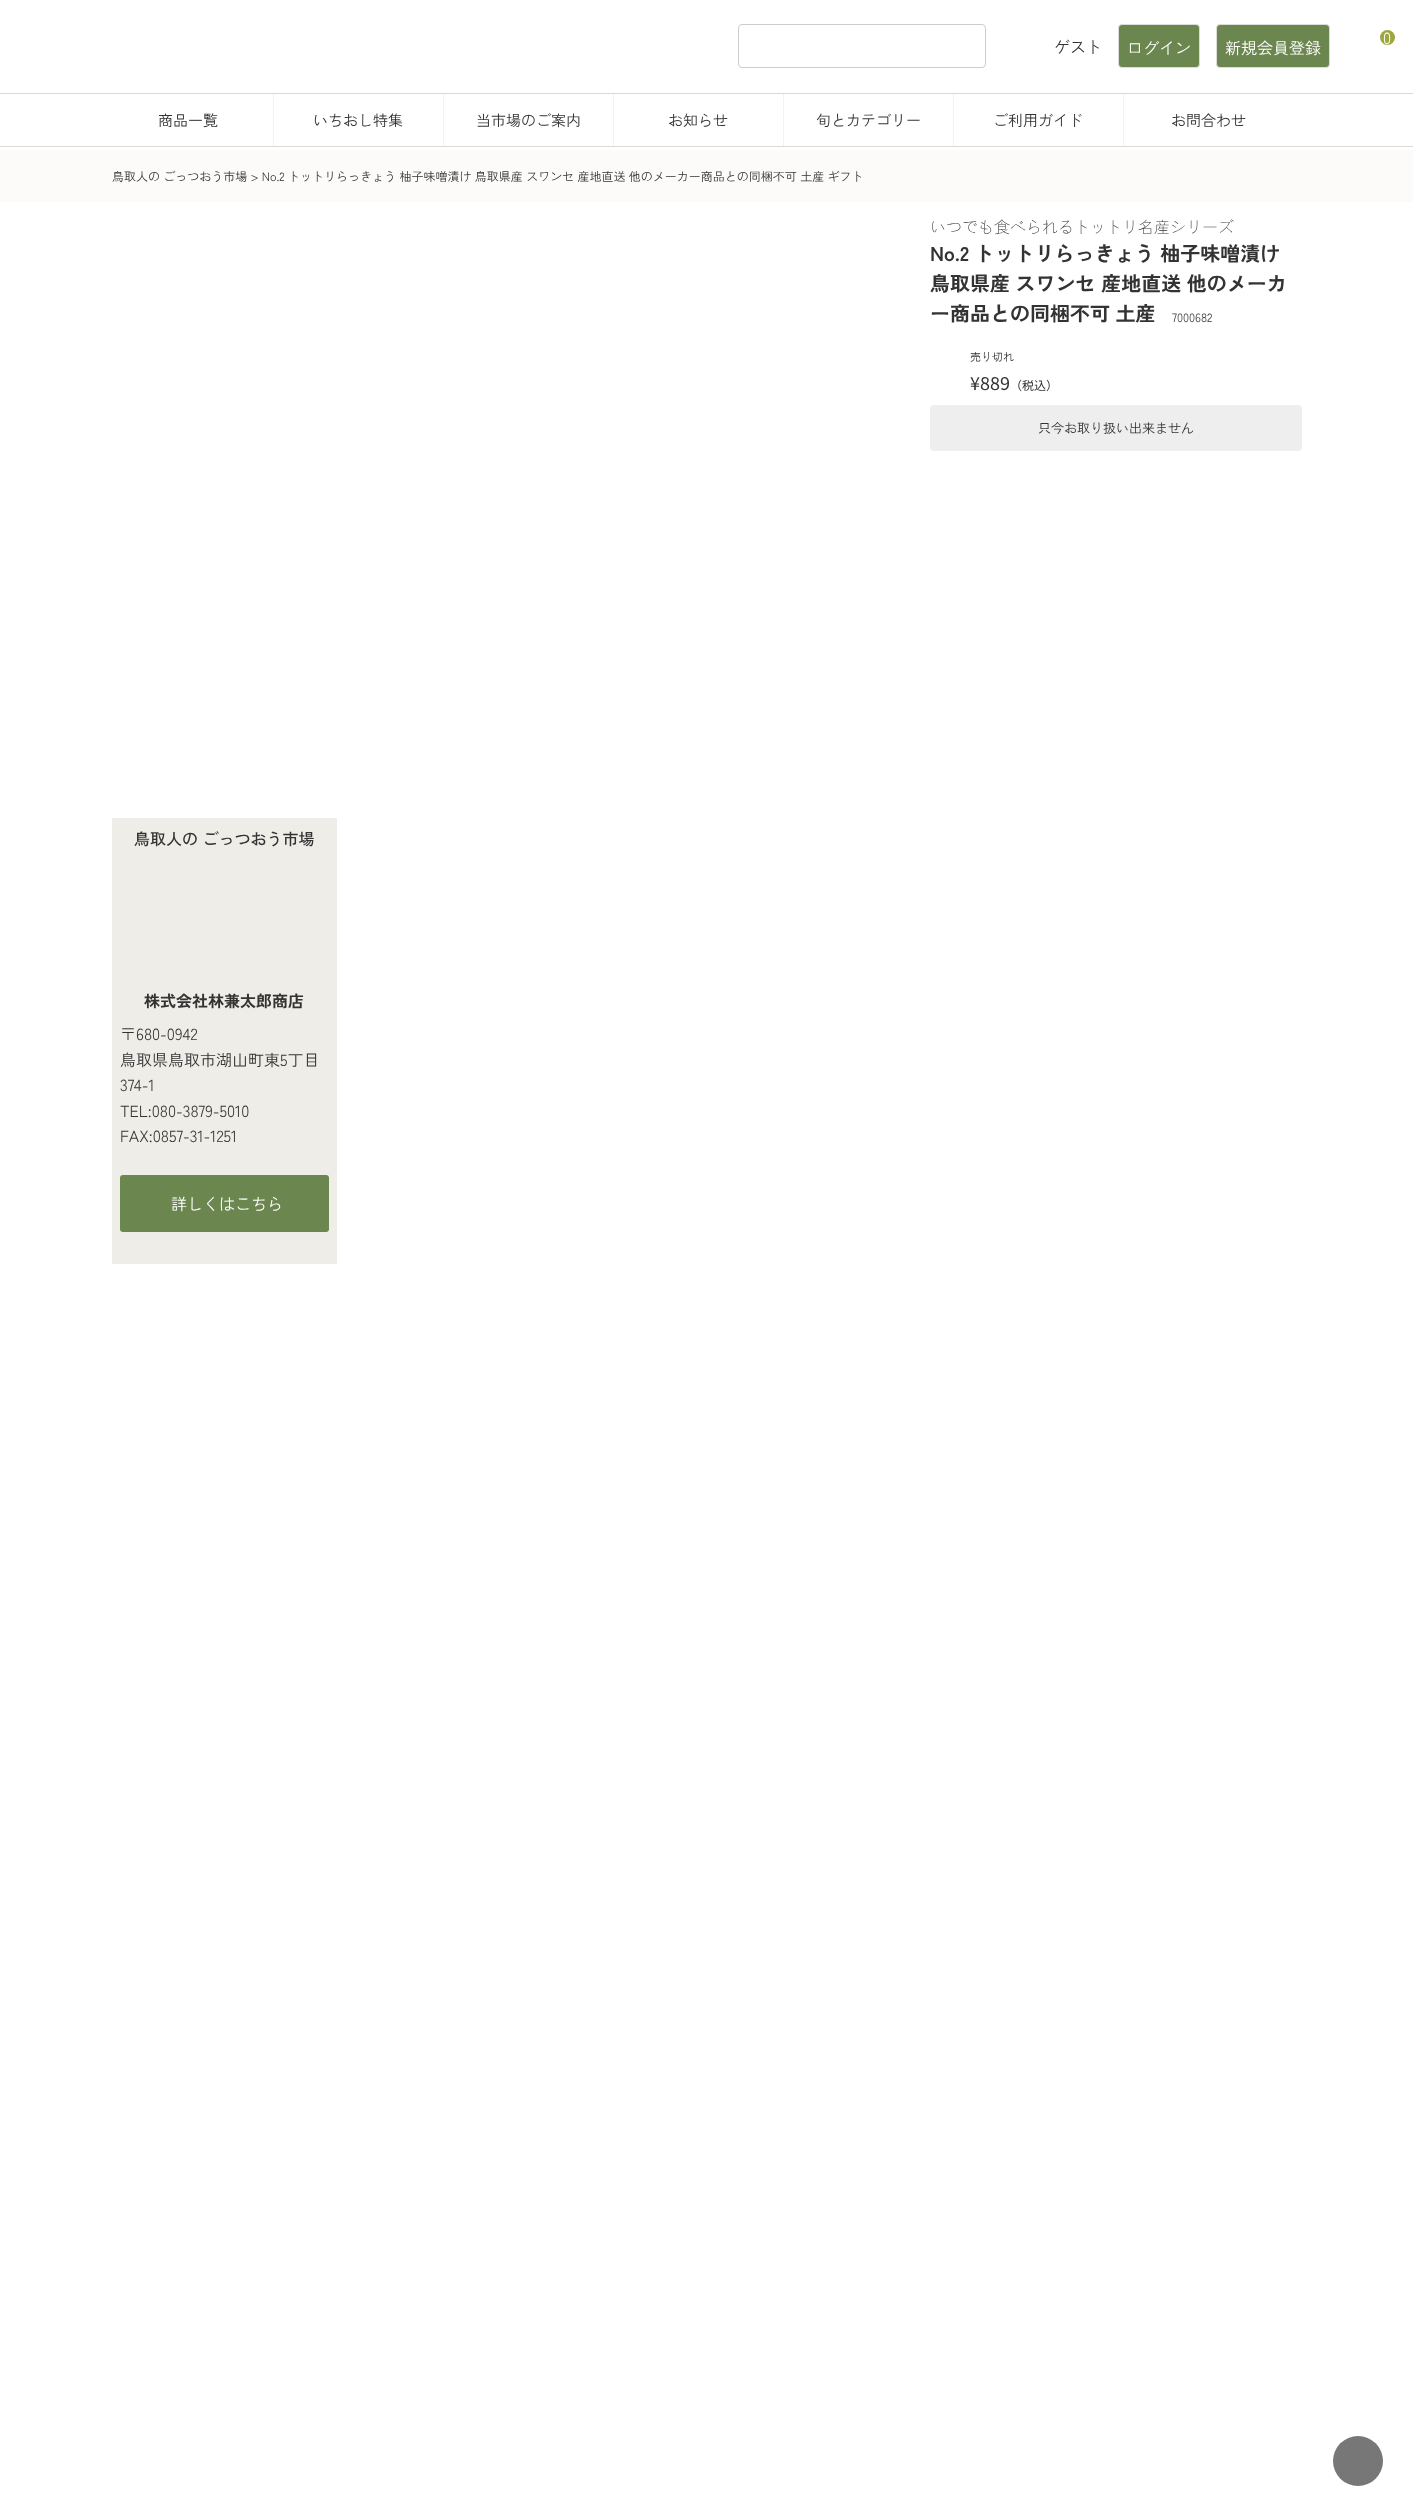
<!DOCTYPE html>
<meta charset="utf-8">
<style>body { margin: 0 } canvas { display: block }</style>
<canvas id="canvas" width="1413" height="2516"></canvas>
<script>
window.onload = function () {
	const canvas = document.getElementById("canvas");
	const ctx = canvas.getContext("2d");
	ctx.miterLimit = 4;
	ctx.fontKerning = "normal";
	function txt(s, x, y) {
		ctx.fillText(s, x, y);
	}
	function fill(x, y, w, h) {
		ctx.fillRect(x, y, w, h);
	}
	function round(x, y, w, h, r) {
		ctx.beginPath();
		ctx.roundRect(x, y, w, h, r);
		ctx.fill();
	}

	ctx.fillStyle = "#FFFFFF";
	fill(0, 0, 1413, 2516);
	ctx.beginPath();
	ctx.roundRect(738.5, 24.5, 247, 43, 3.5);
	ctx.strokeStyle = "#CCCCCC";
	ctx.stroke();
	ctx.fillStyle = "#6C8650";
	ctx.beginPath();
	ctx.roundRect(1118.5, 24.5, 81, 43, 3.5);
	ctx.fill();
	ctx.strokeStyle = "#DDDDDD";
	ctx.stroke();
	ctx.beginPath();
	ctx.roundRect(1216.5, 24.5, 113, 43, 3.5);
	ctx.fill();
	ctx.stroke();
	ctx.fillStyle = "#9EA640";
	ctx.beginPath();
	ctx.arc(1387.5, 37.5, 7.5, 0, Math.PI * 2);
	ctx.fill();
	ctx.fillStyle = "#D9D9D9";
	fill(0, 93, 1413, 1);
	fill(0, 146, 1413, 1);
	ctx.fillStyle = "#F3F3F3";
	fill(273, 94, 1, 52);
	fill(443, 94, 1, 52);
	fill(613, 94, 1, 52);
	fill(783, 94, 1, 52);
	fill(953, 94, 1, 52);
	fill(1123, 94, 1, 52);
	ctx.fillStyle = "#FCFBFA";
	fill(0, 150, 1413, 52);
	ctx.fillStyle = "#EEEEEE";
	round(930, 405, 372, 46, 4);
	ctx.fillStyle = "#EFEDE8";
	fill(112, 818, 225, 446);
	ctx.fillStyle = "#6C8650";
	round(120, 1175, 209, 57, 3);
	ctx.fillStyle = "#777777";
	ctx.beginPath();
	ctx.arc(1358, 2461, 25, 0, Math.PI * 2);
	ctx.fill();
	ctx.font = "16px Zen Kaku Gothic Antique";
	ctx.fillStyle = "#333333";
	txt("ゲスト", 1054, 53);
	ctx.fillStyle = "#FFFFFF";
	txt("ログイン", 1127, 54);
	txt("新規会員登録", 1225, 54);
	txt("0", 1383, 44);
	ctx.font = "15px Zen Kaku Gothic Antique";
	ctx.fillStyle = "#333333";
	txt("商品一覧", 158, 126);
	txt("いちおし特集", 313, 126);
	txt("当市場のご案内", 476, 126);
	txt("お知らせ", 668, 126);
	txt("旬とカテゴリー", 816, 126);
	txt("ご利用ガイド", 993, 126);
	txt("お問合わせ", 1171, 126);
	ctx.font = "12px Zen Kaku Gothic Antique";
	txt("鳥取人の ごっつおう市場 > No.2 トットリらっきょう 柚子味噌漬け 鳥取県産 スワンセ 産地直送 他のメーカー商品との同梱不可 土産 ギフト", 112, 181);
	ctx.font = "300 16px Zen Kaku Gothic Antique";
	txt("いつでも食べられるトットリ名産シリーズ", 930, 233);
	ctx.font = "bold 20px Zen Kaku Gothic Antique";
	txt("No.2 トットリらっきょう 柚子味噌漬け", 930, 261);
	txt("鳥取県産 スワンセ 産地直送 他のメーカ", 930, 291);
	txt("ー商品との同梱不可 土産", 930, 321);
	ctx.font = "12px Zen Kaku Gothic Antique";
	txt("7000682", 1172, 322);
	ctx.font = "11px Zen Kaku Gothic Antique";
	txt("売り切れ", 970, 361);
	ctx.font = "18px Noto Sans JP";
	txt("¥889", 970, 390);
	ctx.font = "12px Noto Sans JP";
	txt("（税込）", 1010, 390);
	ctx.font = "13px Zen Kaku Gothic Antique";
	txt("只今お取り扱い出来ません", 1038, 433);
	ctx.font = "500 16px Zen Kaku Gothic Antique";
	txt("鳥取人の ごっつおう市場", 134, 845);
	ctx.font = "bold 16px Zen Kaku Gothic Antique";
	txt("株式会社林兼太郎商店", 144, 1007);
	ctx.font = "16px Zen Kaku Gothic Antique";
	txt("〒680-0942", 120, 1040);
	txt("鳥取県鳥取市湖山町東5丁目", 120, 1066);
	txt("374-1", 120, 1091);
	txt("TEL:080-3879-5010", 120, 1117);
	txt("FAX:0857-31-1251", 120, 1142);
	ctx.fillStyle = "#FFFFFF";
	txt("詳しくはこちら", 171, 1210);
};
</script>
